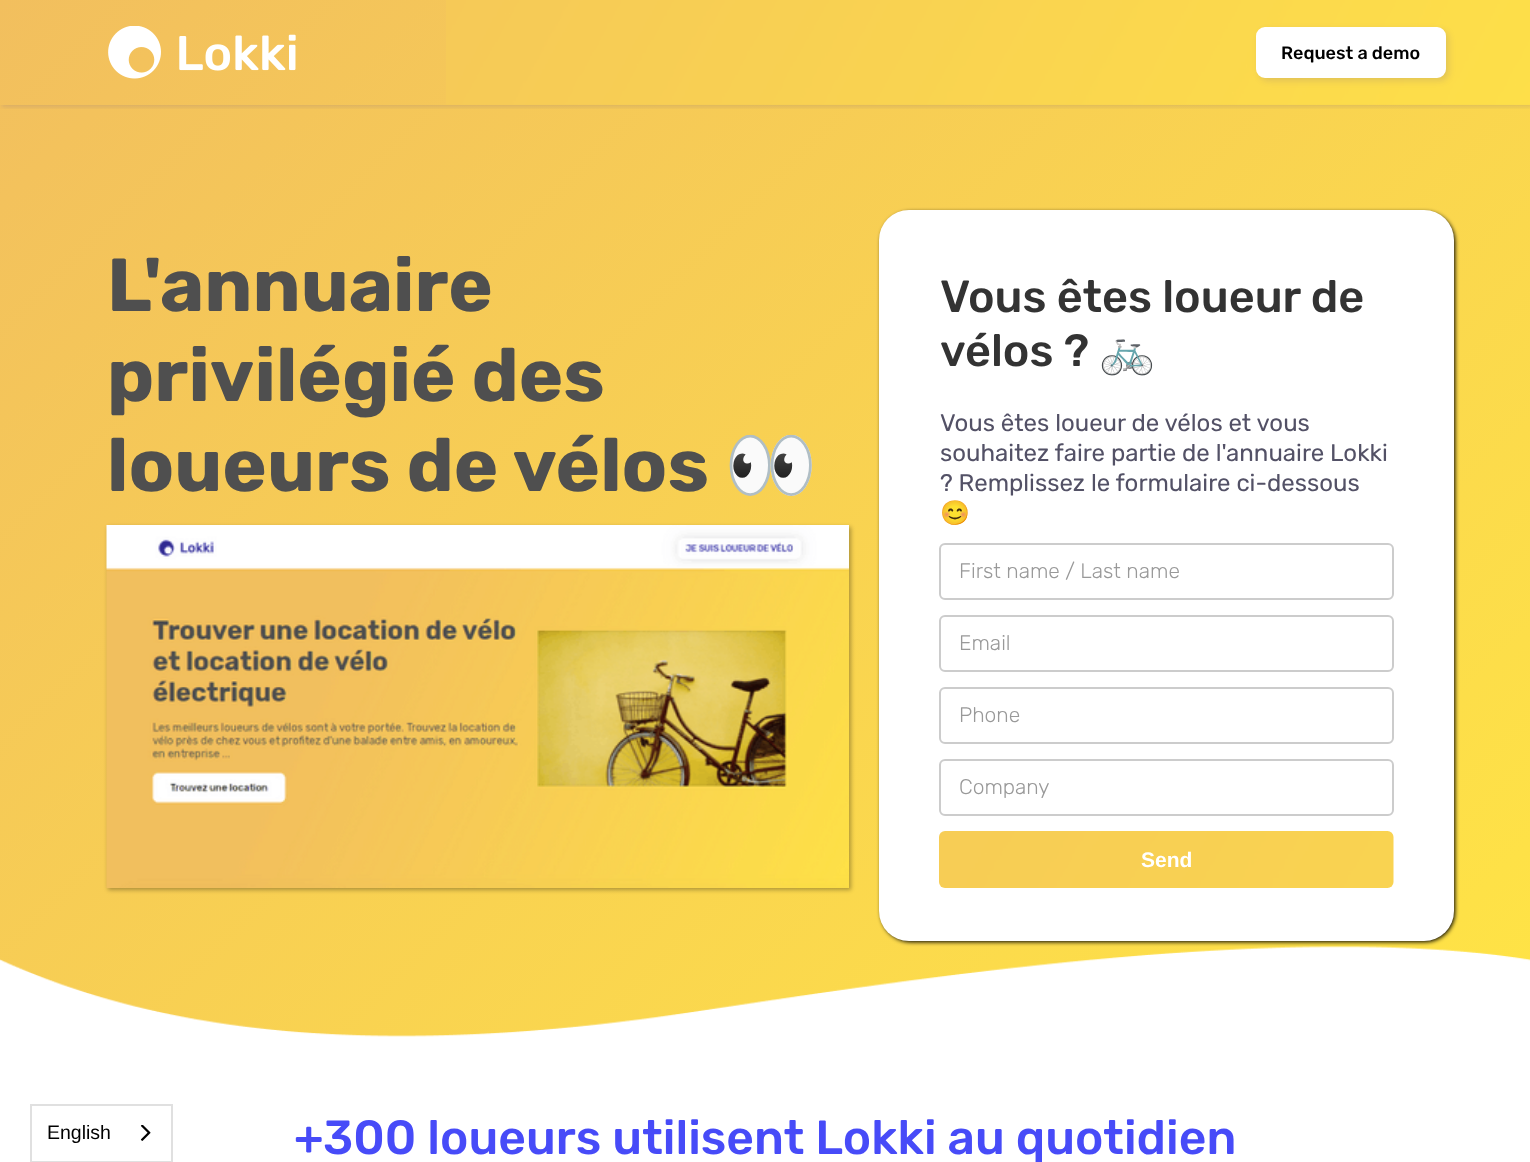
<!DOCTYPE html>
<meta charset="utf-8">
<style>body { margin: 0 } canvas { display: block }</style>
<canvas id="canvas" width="1530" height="1162"></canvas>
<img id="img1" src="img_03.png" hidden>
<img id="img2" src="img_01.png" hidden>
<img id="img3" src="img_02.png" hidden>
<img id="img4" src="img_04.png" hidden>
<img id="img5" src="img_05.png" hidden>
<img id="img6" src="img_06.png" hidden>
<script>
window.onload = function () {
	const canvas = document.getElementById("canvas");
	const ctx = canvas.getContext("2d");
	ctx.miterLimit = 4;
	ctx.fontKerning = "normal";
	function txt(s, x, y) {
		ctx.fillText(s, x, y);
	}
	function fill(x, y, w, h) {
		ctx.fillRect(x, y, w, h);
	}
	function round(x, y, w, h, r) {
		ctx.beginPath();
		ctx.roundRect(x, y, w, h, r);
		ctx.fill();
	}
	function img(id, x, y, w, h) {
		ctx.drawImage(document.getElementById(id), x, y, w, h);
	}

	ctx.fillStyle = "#FFFFFF";
	fill(0, 0, 1530, 1162);
	img("img1", 0, 0, 1530, 1037);
	ctx.save();
	ctx.beginPath();
	ctx.rect(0, 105, 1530, 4);
	ctx.clip();
	ctx.fillStyle = "rgba(48, 35, 173, 0.13)";
	ctx.filter = "blur(2px)";
	ctx.beginPath();
	ctx.rect(2, 2, 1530, 105);
	ctx.fill();
	ctx.filter = "none";
	ctx.restore();
	img("img2", 446, 0, 1084, 105);
	img("img3", 108, 26, 188, 53);
	ctx.fillStyle = "rgba(48, 35, 173, 0.13)";
	ctx.filter = "blur(3px)";
	ctx.beginPath();
	ctx.roundRect(1259, 30, 190, 51, 9);
	ctx.fill();
	ctx.filter = "none";
	ctx.fillStyle = "#FFFFFF";
	ctx.beginPath();
	ctx.roundRect(1257.5, 28.5, 187, 48, 7.5);
	ctx.fill();
	ctx.strokeStyle = "#FFFFFF";
	ctx.lineWidth = 3;
	ctx.stroke();
	ctx.fillStyle = "rgba(0, 0, 0, 0.3)";
	ctx.filter = "blur(2px)";
	ctx.beginPath();
	ctx.rect(108, 527, 743, 363);
	ctx.fill();
	ctx.filter = "none";
	img("img4", 106, 525, 743, 363);
	ctx.fillStyle = "#000000";
	ctx.filter = "blur(2px)";
	ctx.beginPath();
	ctx.roundRect(881, 212, 574, 730, 30);
	ctx.fill();
	ctx.filter = "none";
	ctx.fillStyle = "#FFFFFF";
	round(879, 210, 575, 731, 30);
	ctx.beginPath();
	ctx.roundRect(940, 544, 453, 55, 5);
	ctx.strokeStyle = "#CCCCCC";
	ctx.lineWidth = 2;
	ctx.stroke();
	ctx.beginPath();
	ctx.roundRect(940, 616, 453, 55, 5);
	ctx.stroke();
	ctx.beginPath();
	ctx.roundRect(940, 688, 453, 55, 5);
	ctx.stroke();
	ctx.beginPath();
	ctx.roundRect(940, 760, 453, 55, 5);
	ctx.stroke();
	img("img5", 939, 831, 455, 57);
	ctx.strokeStyle = "#E0E0E0";
	ctx.strokeRect(31, 1105, 141, 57);
	img("img6", 140, 1125, 11, 16);
	ctx.font = "500 18px Rubik";
	ctx.fillStyle = "#000000";
	txt("Request a demo", 1281, 59);
	ctx.font = "bold 75px Rubik";
	ctx.fillStyle = "#4F4F4F";
	txt("L'annuaire", 107, 311);
	txt("privilégié des", 107, 401);
	txt("loueurs de vélos", 107, 491);
	ctx.font = "bold 75px Noto Color Emoji";
	txt("👀", 724, 491);
	ctx.font = "500 45px Rubik";
	ctx.fillStyle = "#333333";
	txt("Vous êtes loueur de", 940, 312);
	txt("vélos ?", 940, 366);
	ctx.font = "45px Noto Color Emoji";
	txt("🚲", 1099, 366);
	ctx.font = "24px Rubik";
	ctx.fillStyle = "#535166";
	txt("Vous êtes loueur de vélos et vous", 940, 431);
	txt("souhaitez faire partie de l'annuaire Lokki", 940, 461);
	txt("? Remplissez le formulaire ci-dessous", 940, 491);
	ctx.font = "24px Noto Color Emoji";
	txt("😊", 940, 521);
	ctx.font = "300 21px Rubik";
	ctx.fillStyle = "#999999";
	txt("First name / Last name", 959, 578);
	txt("Email", 959, 650);
	txt("Phone", 959, 722);
	txt("Company", 959, 794);
	ctx.font = "bold 21px Liberation Sans";
	ctx.fillStyle = "#FFFFFF";
	txt("Send", 1141, 867);
	ctx.font = "19.5px Liberation Sans";
	ctx.fillStyle = "#000000";
	txt("English", 47, 1139);
	ctx.font = "500 48px Rubik";
	ctx.fillStyle = "#474BF8";
	txt("+300 loueurs utilisent Lokki au quotidien", 294, 1154);
};
</script>
